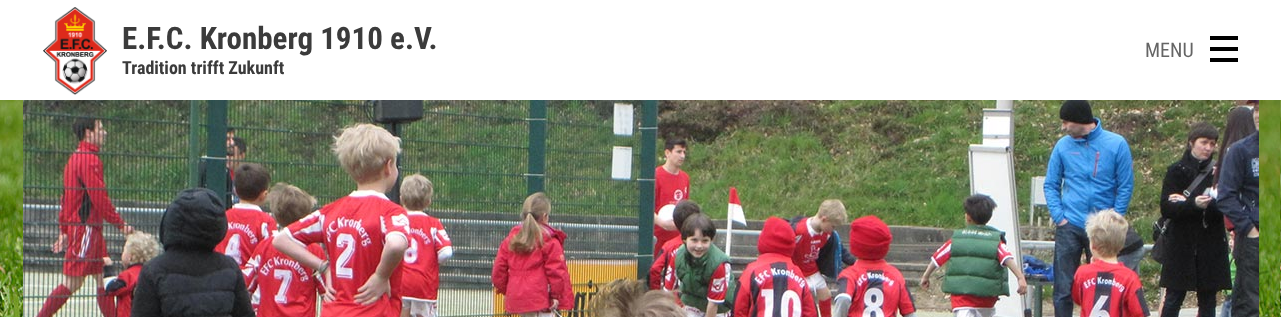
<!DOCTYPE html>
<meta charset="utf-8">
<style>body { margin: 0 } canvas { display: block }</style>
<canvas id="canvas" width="1281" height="317"></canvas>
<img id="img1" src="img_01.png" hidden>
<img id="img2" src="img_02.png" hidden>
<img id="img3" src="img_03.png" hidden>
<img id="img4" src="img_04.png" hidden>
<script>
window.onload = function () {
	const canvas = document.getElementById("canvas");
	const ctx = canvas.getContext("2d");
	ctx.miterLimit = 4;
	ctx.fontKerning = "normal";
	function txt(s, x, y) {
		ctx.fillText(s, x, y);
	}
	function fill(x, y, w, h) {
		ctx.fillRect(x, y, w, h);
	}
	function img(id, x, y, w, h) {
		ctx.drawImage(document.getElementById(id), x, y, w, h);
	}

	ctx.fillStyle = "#FFFFFF";
	fill(0, 0, 1281, 317);
	img("img1", 43, 7, 64, 88);
	img("img2", 1210, 36, 28, 26);
	img("img3", 0, 100, 1281, 217);
	img("img4", 23, 100, 1236, 217);
	ctx.font = "bold 31px Roboto Condensed";
	ctx.fillStyle = "#3B3B3B";
	txt("E.F.C. Kronberg 1910 e.V.", 122, 49);
	ctx.font = "bold 18px Roboto Condensed";
	txt("Tradition trifft Zukunft", 122, 74);
	ctx.font = "20px Roboto Condensed";
	ctx.fillStyle = "#656565";
	txt("MENU", 1145, 57);
};
</script>
